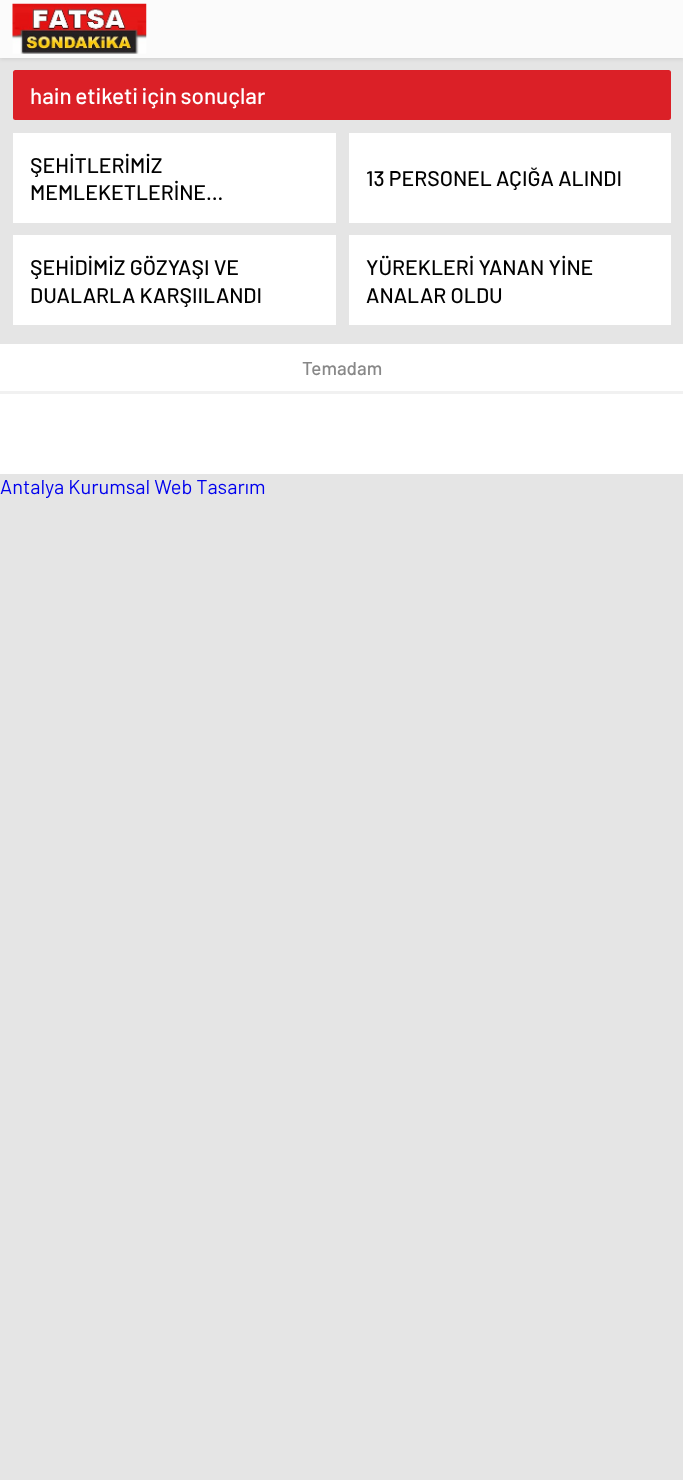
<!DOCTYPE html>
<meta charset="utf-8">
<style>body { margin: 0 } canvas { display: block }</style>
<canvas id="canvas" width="683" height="1480"></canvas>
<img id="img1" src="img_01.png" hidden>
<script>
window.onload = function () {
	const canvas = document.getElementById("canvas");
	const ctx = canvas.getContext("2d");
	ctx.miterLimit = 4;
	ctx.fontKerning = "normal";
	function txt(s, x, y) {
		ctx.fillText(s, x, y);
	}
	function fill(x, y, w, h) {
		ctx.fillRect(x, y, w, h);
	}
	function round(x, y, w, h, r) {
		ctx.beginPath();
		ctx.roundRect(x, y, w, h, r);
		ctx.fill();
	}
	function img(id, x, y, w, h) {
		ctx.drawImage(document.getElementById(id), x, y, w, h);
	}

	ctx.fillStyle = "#E5E5E5";
	fill(0, 0, 683, 1480);
	ctx.fillStyle = "rgba(0, 0, 0, 0.1)";
	ctx.filter = "blur(2px)";
	ctx.beginPath();
	ctx.rect(0, 1, 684, 58);
	ctx.fill();
	ctx.filter = "none";
	ctx.fillStyle = "#FBFBFB";
	fill(0, 0, 683, 58);
	img("img1", 12, 3, 135, 51);
	ctx.fillStyle = "#DB2027";
	round(13, 70, 658, 50, 2.5);
	ctx.fillStyle = "#FFFFFF";
	fill(13, 133, 323, 90);
	fill(349, 133, 322, 90);
	fill(13, 235, 323, 90);
	fill(349, 235, 322, 90);
	fill(0, 344, 683, 130);
	ctx.fillStyle = "#F1F1F1";
	fill(0, 391, 683, 3);
	ctx.wordSpacing = "-1px";
	ctx.font = "500 22.5px Barlow";
	ctx.fillStyle = "#FFFFFF";
	txt("hain etiketi için sonuçlar", 30, 104);
	ctx.wordSpacing = "0px";
	ctx.font = "500 21.25px Barlow";
	ctx.fillStyle = "#010101";
	txt("ŞEHİTLERİMİZ", 30, 173);
	txt("MEMLEKETLERİNE…", 30, 200);
	txt("13 PERSONEL AÇIĞA ALINDI", 366, 186);
	txt("ŞEHİDİMİZ GÖZYAŞI VE", 30, 275);
	txt("DUALARLA KARŞIILANDI", 30, 303);
	txt("YÜREKLERİ YANAN YİNE", 366, 275);
	txt("ANALAR OLDU", 366, 303);
	ctx.font = "500 18.75px Barlow";
	ctx.fillStyle = "#888888";
	txt("Temadam", 302, 375);
	ctx.font = "20px Barlow";
	ctx.fillStyle = "#0000EE";
	txt("Antalya Kurumsal Web Tasarım", 0, 494);
};
</script>
